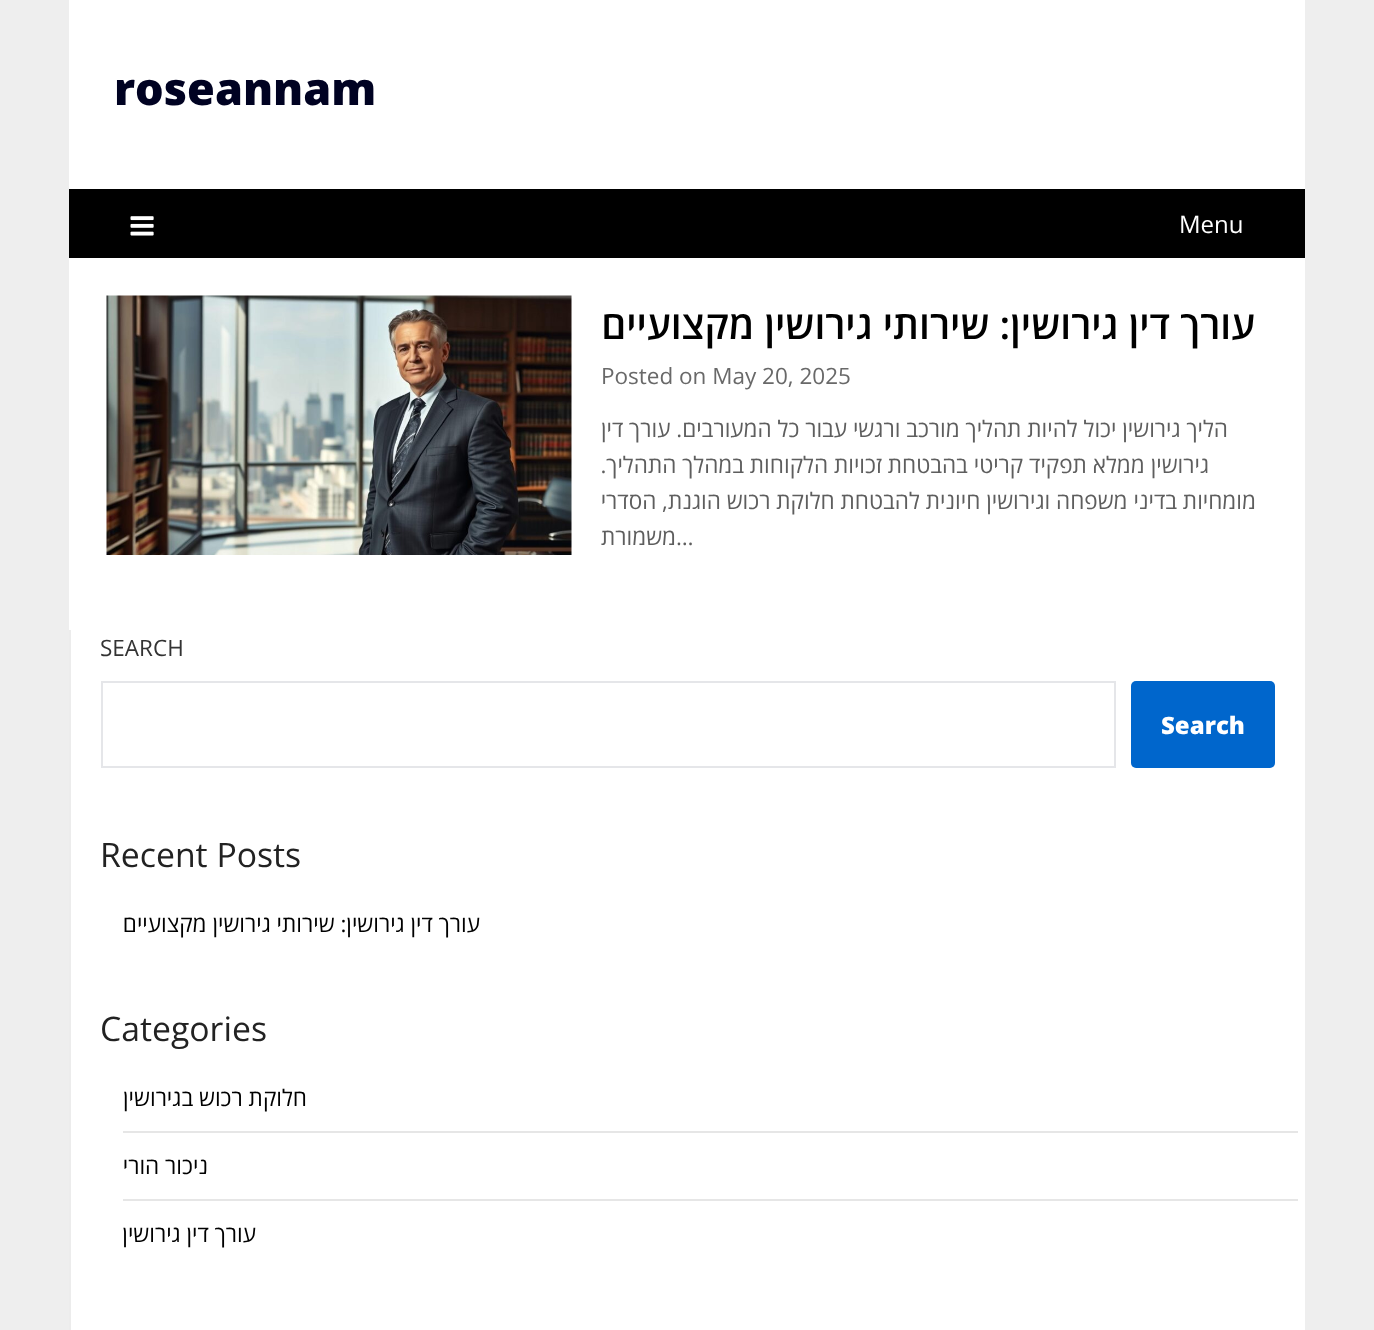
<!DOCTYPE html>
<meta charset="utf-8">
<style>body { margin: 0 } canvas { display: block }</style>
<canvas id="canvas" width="1374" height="1330"></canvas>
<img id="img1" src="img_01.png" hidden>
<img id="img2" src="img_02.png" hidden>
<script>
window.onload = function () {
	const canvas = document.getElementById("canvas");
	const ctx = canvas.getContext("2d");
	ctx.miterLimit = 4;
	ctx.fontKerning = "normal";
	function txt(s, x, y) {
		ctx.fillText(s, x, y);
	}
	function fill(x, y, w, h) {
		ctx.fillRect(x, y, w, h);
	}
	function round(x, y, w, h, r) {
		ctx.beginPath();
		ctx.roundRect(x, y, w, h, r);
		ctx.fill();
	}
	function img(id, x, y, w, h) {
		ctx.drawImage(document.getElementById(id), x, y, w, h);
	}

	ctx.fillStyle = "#EEEEEE";
	fill(0, 0, 1374, 1330);
	ctx.fillStyle = "#FFFFFF";
	fill(69, 0, 1236, 189);
	ctx.fillStyle = "#000000";
	fill(69, 189, 1236, 69);
	img("img1", 130, 216, 24, 20);
	ctx.fillStyle = "#FFFFFF";
	fill(69, 258, 1236, 1072);
	img("img2", 106, 295, 466, 260);
	ctx.fillStyle = "#ECECEC";
	fill(69, 630, 2, 700);
	ctx.fillStyle = "#0066CC";
	round(1131, 681, 144, 87, 5);
	ctx.strokeStyle = "#E5E6E9";
	ctx.lineWidth = 2;
	ctx.strokeRect(102, 682, 1013, 85);
	ctx.fillStyle = "#E6E6E6";
	fill(123, 1131, 1175, 2);
	fill(123, 1199, 1175, 2);
	ctx.font = "800 45px Open Sans";
	ctx.fillStyle = "#000222";
	txt("roseannam", 114, 105);
	ctx.font = "24px Open Sans";
	ctx.fillStyle = "#FFFFFF";
	txt("Menu", 1179, 233);
	ctx.direction = "rtl";
	ctx.font = "600 39px Open Sans";
	ctx.fillStyle = "#000000";
	txt("עורך דין גירושין: שירותי גירושין מקצועיים", 1255, 339);
	ctx.direction = "ltr";
	ctx.font = "22.5px Open Sans";
	ctx.fillStyle = "#696969";
	txt("Posted on May 20, 2025", 601, 384);
	ctx.direction = "rtl";
	ctx.fillStyle = "#5E5E5E";
	txt("הליך גירושין יכול להיות תהליך מורכב ורגשי עבור כל המעורבים. עורך דין", 1228, 437);
	txt("גירושין ממלא תפקיד קריטי בהבטחת זכויות הלקוחות במהלך התהליך.", 1209, 473);
	txt("מומחיות בדיני משפחה וגירושין חיונית להבטחת חלוקת רכוש הוגנת, הסדרי", 1256, 509);
	ctx.direction = "ltr";
	txt("…", 676, 545);
	ctx.direction = "rtl";
	txt("משמורת", 676, 545);
	ctx.direction = "ltr";
	ctx.fillStyle = "#333333";
	txt("SEARCH", 100, 656);
	ctx.font = "800 24px Open Sans";
	ctx.fillStyle = "#FFFFFF";
	txt("Search", 1161, 734);
	ctx.font = "33.75px Open Sans";
	ctx.fillStyle = "#222222";
	txt("Recent Posts", 100, 867);
	ctx.direction = "rtl";
	ctx.font = "22.5px Open Sans";
	ctx.fillStyle = "#000000";
	txt("עורך דין גירושין: שירותי גירושין מקצועיים", 480, 932);
	ctx.direction = "ltr";
	ctx.font = "33.75px Open Sans";
	ctx.fillStyle = "#222222";
	txt("Categories", 100, 1041);
	ctx.direction = "rtl";
	ctx.font = "22.5px Open Sans";
	ctx.fillStyle = "#000000";
	txt("חלוקת רכוש בגירושין", 307, 1106);
	txt("ניכור הורי", 208, 1174);
	txt("עורך דין גירושין", 256, 1242);
};
</script>
